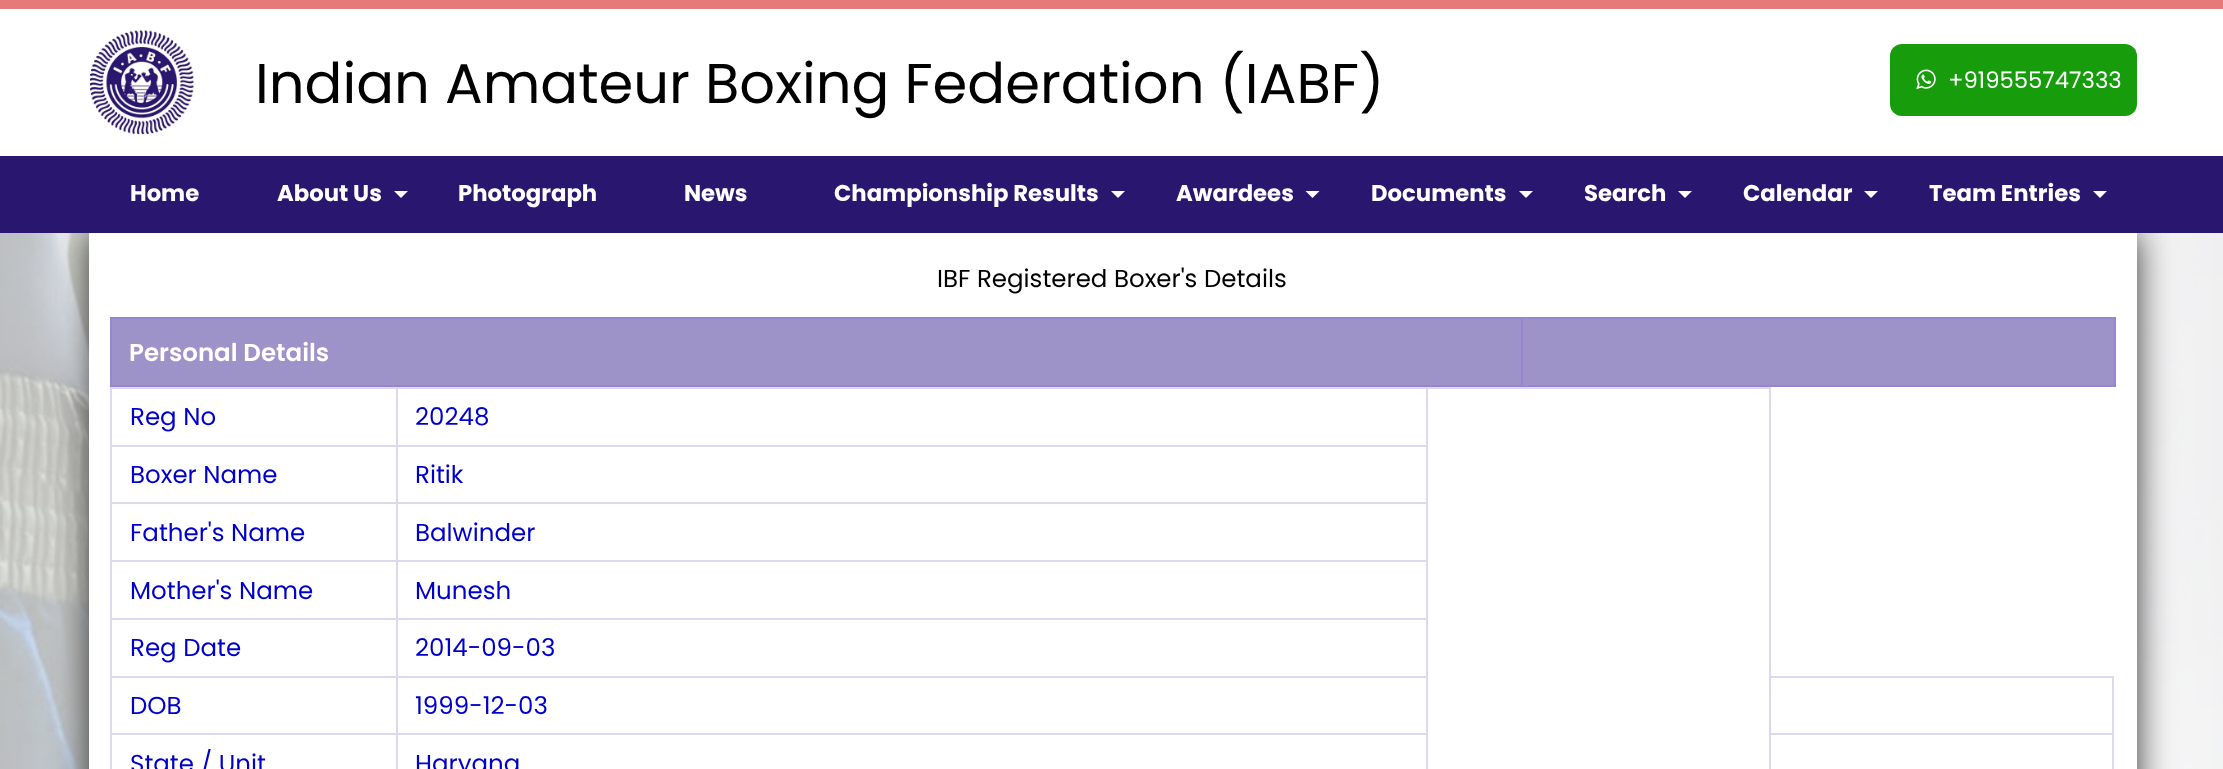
<!DOCTYPE html>
<meta charset="utf-8">
<style>body { margin: 0 } canvas { display: block }</style>
<canvas id="canvas" width="2223" height="769"></canvas>
<img id="img1" src="img_01.png" hidden>
<img id="img2" src="img_02.png" hidden>
<img id="img3" src="img_03.png" hidden>
<script>
window.onload = function () {
	const canvas = document.getElementById("canvas");
	const ctx = canvas.getContext("2d");
	ctx.miterLimit = 4;
	ctx.fontKerning = "normal";
	function txt(s, x, y) {
		ctx.fillText(s, x, y);
	}
	function fill(x, y, w, h) {
		ctx.fillRect(x, y, w, h);
	}
	function round(x, y, w, h, r) {
		ctx.beginPath();
		ctx.roundRect(x, y, w, h, r);
		ctx.fill();
	}
	function img(id, x, y, w, h) {
		ctx.drawImage(document.getElementById(id), x, y, w, h);
	}

	ctx.fillStyle = "#FFFFFF";
	fill(0, 0, 2223, 769);
	img("img1", 0, 233, 2223, 536);
	ctx.fillStyle = "#E67979";
	fill(0, 0, 2223, 9);
	img("img2", 89, 29, 105, 106);
	ctx.fillStyle = "#179D0C";
	round(1890, 44, 247, 72, 12);
	img("img3", 1916, 69, 20, 21);
	ctx.fillStyle = "#333333";
	ctx.filter = "blur(17.5px)";
	ctx.beginPath();
	ctx.rect(89, 233, 2048, 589);
	ctx.fill();
	ctx.filter = "none";
	ctx.fillStyle = "#29166F";
	fill(0, 156, 2223, 77);
	ctx.fillStyle = "#FFFFFF";
	ctx.beginPath();
	ctx.moveTo(394, 191);
	ctx.lineTo(408, 191);
	ctx.lineTo(401, 198);
	ctx.closePath();
	ctx.fill();
	ctx.beginPath();
	ctx.moveTo(1111, 191);
	ctx.lineTo(1125, 191);
	ctx.lineTo(1118, 198);
	ctx.closePath();
	ctx.fill();
	ctx.beginPath();
	ctx.moveTo(1305.5, 191);
	ctx.lineTo(1319.5, 191);
	ctx.lineTo(1312.5, 198);
	ctx.closePath();
	ctx.fill();
	ctx.beginPath();
	ctx.moveTo(1519, 191);
	ctx.lineTo(1533, 191);
	ctx.lineTo(1526, 198);
	ctx.closePath();
	ctx.fill();
	ctx.beginPath();
	ctx.moveTo(1678, 191);
	ctx.lineTo(1692, 191);
	ctx.lineTo(1685, 198);
	ctx.closePath();
	ctx.fill();
	ctx.beginPath();
	ctx.moveTo(1864, 191);
	ctx.lineTo(1878, 191);
	ctx.lineTo(1871, 198);
	ctx.closePath();
	ctx.fill();
	ctx.beginPath();
	ctx.moveTo(2093, 191);
	ctx.lineTo(2107, 191);
	ctx.lineTo(2100, 198);
	ctx.closePath();
	ctx.fill();
	fill(89, 233, 2048, 536);
	ctx.fillStyle = "#9E93C8";
	fill(112, 319, 1409, 66);
	ctx.fillStyle = "#9686D0";
	fill(1521, 317, 595, 2);
	fill(2114, 317, 2, 70);
	fill(1521, 385, 595, 2);
	fill(1521, 317, 2, 70);
	fill(110, 317, 1413, 2);
	fill(110, 385, 1413, 2);
	fill(110, 317, 2, 70);
	ctx.fillStyle = "#9E93C8";
	fill(1523, 319, 591, 66);
	ctx.fillStyle = "#DDD8EE";
	fill(1426, 387, 345, 2);
	fill(396, 445, 1032, 2);
	fill(396, 502, 1032, 2);
	fill(396, 560, 1032, 2);
	fill(396, 618, 1032, 2);
	fill(396, 676, 1032, 2);
	fill(396, 733, 1032, 2);
	fill(1426, 387, 2, 382);
	fill(396, 387, 1032, 2);
	fill(396, 733, 2, 36);
	fill(110, 733, 287, 2);
	fill(396, 676, 2, 59);
	fill(110, 676, 287, 2);
	fill(396, 618, 2, 59);
	fill(110, 618, 287, 2);
	fill(396, 560, 2, 60);
	fill(110, 560, 287, 2);
	fill(396, 502, 2, 60);
	fill(110, 502, 287, 2);
	fill(396, 445, 2, 59);
	fill(110, 445, 287, 2);
	fill(396, 387, 2, 59);
	fill(110, 387, 287, 2);
	fill(110, 733, 2, 36);
	fill(110, 676, 2, 59);
	fill(110, 618, 2, 59);
	fill(110, 560, 2, 60);
	fill(110, 502, 2, 60);
	fill(110, 445, 2, 59);
	fill(110, 387, 2, 59);
	fill(1769, 676, 345, 2);
	fill(1769, 733, 345, 2);
	fill(1769, 387, 2, 382);
	fill(2112, 733, 2, 36);
	fill(2112, 676, 2, 59);
	ctx.font = "56px Poppins";
	ctx.fillStyle = "#000000";
	txt("Indian Amateur Boxing Federation (IABF)", 255, 103);
	ctx.font = "22.75px Poppins";
	ctx.fillStyle = "#FFFFFF";
	txt("+919555747333", 1948, 88);
	ctx.font = "bold 22.75px Poppins";
	txt("Home", 130, 201);
	txt("About Us", 277, 201);
	txt("Photograph", 458, 201);
	txt("News", 684, 201);
	txt("Championship Results", 834, 201);
	txt("Awardees", 1176, 201);
	txt("Documents", 1371, 201);
	txt("Search", 1584, 201);
	txt("Calendar", 1743, 201);
	txt("Team Entries", 1929, 201);
	ctx.font = "24.5px Poppins";
	ctx.fillStyle = "#000000";
	txt("IBF Registered Boxer's Details", 937, 287);
	ctx.font = "600 24.5px Poppins";
	ctx.fillStyle = "#FFFFFF";
	txt("Personal Details", 129, 361);
	ctx.font = "24.5px Poppins";
	ctx.fillStyle = "#0000CC";
	txt("Reg No", 130, 425);
	txt("20248", 415, 425);
	txt("Boxer Name", 130, 483);
	txt("Ritik", 415, 483);
	txt("Father's Name", 130, 541);
	txt("Balwinder", 415, 541);
	txt("Mother's Name", 130, 599);
	txt("Munesh", 415, 599);
	txt("Reg Date", 130, 656);
	txt("2014-09-03", 415, 656);
	txt("DOB", 130, 714);
	txt("1999-12-03", 415, 714);
	txt("State / Unit", 130, 772);
	txt("Haryana", 415, 772);
};
</script>
